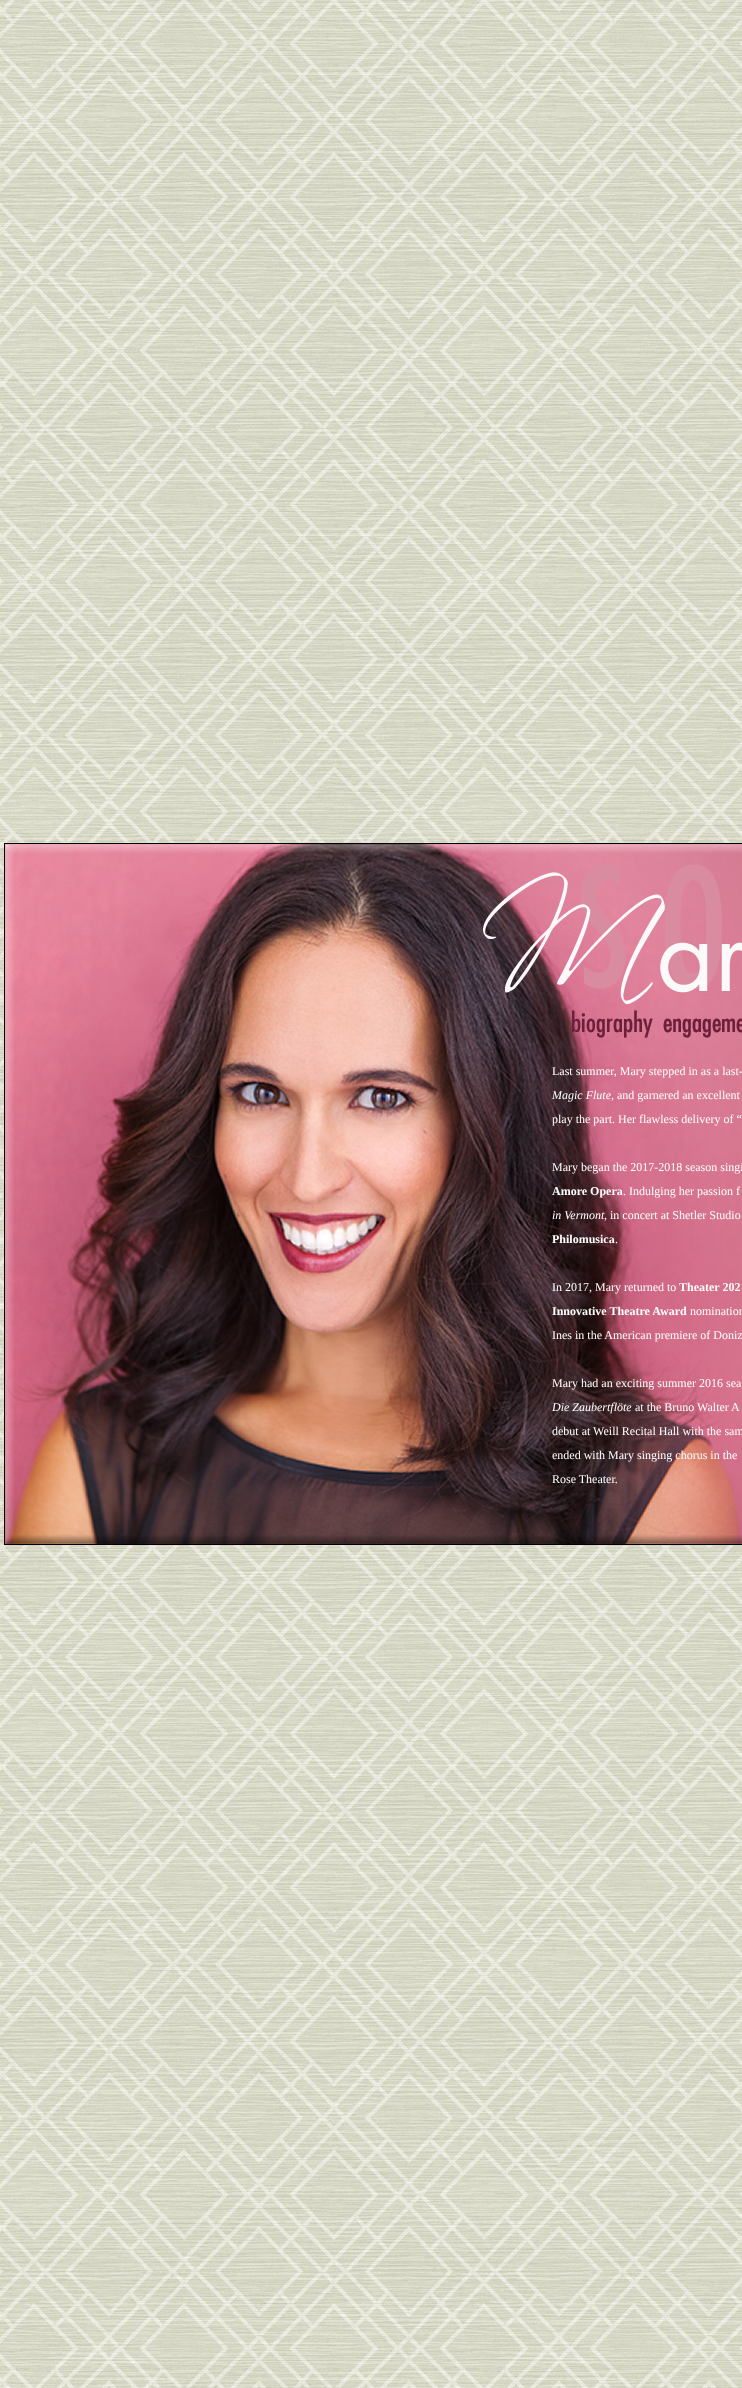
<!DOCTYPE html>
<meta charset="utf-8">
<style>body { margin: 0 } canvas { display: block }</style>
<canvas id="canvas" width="742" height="2388"></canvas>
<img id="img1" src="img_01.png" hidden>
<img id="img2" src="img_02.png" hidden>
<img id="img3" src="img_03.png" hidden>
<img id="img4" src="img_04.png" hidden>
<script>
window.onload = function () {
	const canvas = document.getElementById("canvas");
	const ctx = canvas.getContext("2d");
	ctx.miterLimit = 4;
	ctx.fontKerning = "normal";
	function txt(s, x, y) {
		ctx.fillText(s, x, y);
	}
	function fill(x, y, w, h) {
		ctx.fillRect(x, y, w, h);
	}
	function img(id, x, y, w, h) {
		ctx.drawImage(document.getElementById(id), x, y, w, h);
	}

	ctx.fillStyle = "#FFFFFF";
	fill(0, 0, 742, 2388);
	img("img1", 0, 0, 742, 2388);
	ctx.fillStyle = "#000000";
	fill(4, 843, 738, 702);
	img("img2", 5, 844, 737, 700);
	img("img3", 572, 1010, 81, 28);
	img("img4", 663, 1018, 79, 20);
	ctx.font = "12px Liberation Serif";
	ctx.fillStyle = "#FFFFFF";
	txt("Last summer, Mary stepped in as a last-", 552, 1075);
	ctx.font = "italic 12px Liberation Serif";
	txt("Magic Flute", 552, 1099);
	ctx.font = "12px Liberation Serif";
	txt(", and garnered an excellent", 611, 1099);
	txt("play the part. Her flawless delivery of “", 552, 1123);
	txt("Mary began the 2017-2018 season singi", 552, 1171);
	ctx.font = "bold 12px Liberation Serif";
	txt("Amore Opera", 552, 1195);
	ctx.font = "12px Liberation Serif";
	txt(". Indulging her passion f", 623, 1195);
	ctx.font = "italic 12px Liberation Serif";
	txt("in Vermont", 552, 1219);
	ctx.font = "12px Liberation Serif";
	txt(", in concert at Shetler Studio", 604, 1219);
	ctx.font = "bold 12px Liberation Serif";
	txt("Philomusica", 552, 1243);
	ctx.font = "12px Liberation Serif";
	txt(".", 615, 1243);
	txt("In 2017, Mary returned to", 552, 1291);
	ctx.font = "bold 12px Liberation Serif";
	txt("Theater 202", 679, 1291);
	txt("Innovative Theatre Award", 552, 1315);
	ctx.font = "12px Liberation Serif";
	txt("nomination", 690, 1315);
	txt("Ines in the American premiere of Doniz", 552, 1339);
	txt("Mary had an exciting summer 2016 sea", 552, 1387);
	ctx.font = "italic 12px Liberation Serif";
	txt("Die Zaubertflöte", 552, 1411);
	ctx.font = "12px Liberation Serif";
	txt("at the Bruno Walter A", 635, 1411);
	txt("debut at Weill Recital Hall with the sam", 552, 1435);
	txt("ended with Mary singing chorus in the", 552, 1459);
	txt("Rose Theater.", 552, 1483);
};
</script>
